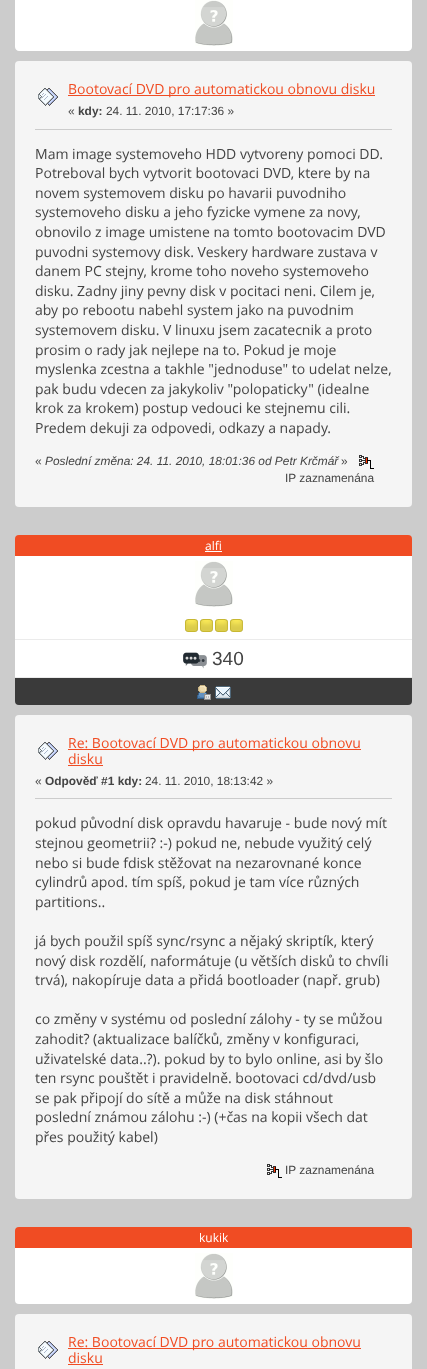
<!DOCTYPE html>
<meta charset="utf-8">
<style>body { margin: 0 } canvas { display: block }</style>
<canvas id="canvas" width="427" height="1369"></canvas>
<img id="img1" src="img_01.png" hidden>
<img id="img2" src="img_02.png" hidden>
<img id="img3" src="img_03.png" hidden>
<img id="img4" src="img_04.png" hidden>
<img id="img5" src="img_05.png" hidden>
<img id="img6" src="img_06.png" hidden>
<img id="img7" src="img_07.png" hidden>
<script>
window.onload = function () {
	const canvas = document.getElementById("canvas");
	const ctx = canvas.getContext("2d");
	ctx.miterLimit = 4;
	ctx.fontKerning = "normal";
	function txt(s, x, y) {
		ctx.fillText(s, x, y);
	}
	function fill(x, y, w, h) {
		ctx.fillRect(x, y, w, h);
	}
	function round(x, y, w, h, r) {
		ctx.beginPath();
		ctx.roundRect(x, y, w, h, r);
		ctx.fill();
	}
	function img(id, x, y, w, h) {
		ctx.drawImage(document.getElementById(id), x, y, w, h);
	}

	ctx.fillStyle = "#CCCCCC";
	fill(0, 0, 427, 1369);
	ctx.fillStyle = "#FFFFFF";
	ctx.beginPath();
	ctx.moveTo(15, -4);
	ctx.lineTo(412, -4);
	ctx.lineTo(412, 47);
	ctx.bezierCurveTo(412, 49, 410, 51, 408, 51);
	ctx.lineTo(19, 51);
	ctx.bezierCurveTo(17, 51, 15, 49, 15, 47);
	ctx.closePath();
	ctx.fill();
	img("img1", 195, 0, 38, 46);
	ctx.fillStyle = "#F5F5F5";
	round(15, 61, 397, 446, 4);
	img("img2", 38, 88, 20, 18);
	ctx.fillStyle = "#F04C23";
	fill(68, 95, 307, 1);
	ctx.fillStyle = "#CCCCCC";
	fill(35, 129, 357, 1);
	img("img3", 359, 455, 15, 14);
	ctx.fillStyle = "#F04C23";
	ctx.beginPath();
	ctx.roundRect(15, 535, 397, 21, [4, 4, 0, 0]);
	ctx.fill();
	ctx.fillStyle = "#FFFFFF";
	fill(205, 551, 17, 1);
	fill(15, 556, 397, 83);
	img("img4", 185, 619, 13, 13);
	img("img4", 200, 619, 13, 13);
	img("img4", 215, 619, 13, 13);
	img("img4", 230, 619, 13, 13);
	img("img1", 195, 561, 38, 46);
	fill(15, 640, 397, 37);
	ctx.fillStyle = "#EBEBEB";
	fill(15, 639, 397, 1);
	fill(15, 677, 397, 1);
	img("img5", 183, 652, 24, 17);
	ctx.fillStyle = "#3A3A3A";
	ctx.beginPath();
	ctx.roundRect(15, 678, 397, 27, [0, 0, 4, 4]);
	ctx.fill();
	img("img6", 197, 685, 14, 15);
	img("img7", 215, 686, 16, 13);
	ctx.fillStyle = "#F5F5F5";
	round(15, 715, 397, 484, 4);
	img("img2", 38, 742, 20, 18);
	ctx.fillStyle = "#F04C23";
	fill(68, 749, 293, 1);
	fill(68, 765, 35, 1);
	ctx.fillStyle = "#CCCCCC";
	fill(35, 798, 357, 1);
	img("img3", 267, 1164, 15, 14);
	ctx.fillStyle = "#F04C23";
	ctx.beginPath();
	ctx.roundRect(15, 1227, 397, 21, [4, 4, 0, 0]);
	ctx.fill();
	ctx.fillStyle = "#FFFFFF";
	ctx.beginPath();
	ctx.roundRect(15, 1248, 397, 56, [0, 0, 4, 4]);
	ctx.fill();
	img("img1", 195, 1253, 38, 46);
	ctx.fillStyle = "#F5F5F5";
	round(15, 1314, 397, 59, 4);
	img("img2", 38, 1341, 20, 18);
	ctx.fillStyle = "#F04C23";
	fill(68, 1348, 293, 1);
	fill(68, 1364, 35, 1);
	ctx.font = "14px Open Sans";
	txt("Bootovací DVD pro automatickou obnovu disku", 68, 94);
	ctx.font = "11.9px Liberation Sans";
	ctx.fillStyle = "#444444";
	txt("«", 68, 115);
	ctx.font = "bold 11.9px Liberation Sans";
	txt("kdy:", 78, 115);
	ctx.font = "11.9px Liberation Sans";
	txt("24. 11. 2010, 17:17:36 »", 106, 115);
	ctx.font = "14px Open Sans";
	txt("Mam image systemoveho HDD vytvoreny pomoci DD.", 35, 159);
	txt("Potreboval bych vytvorit bootovaci DVD, ktere by na", 35, 178);
	txt("novem systemovem disku po havarii puvodniho", 35, 198);
	txt("systemoveho disku a jeho fyzicke vymene za novy,", 35, 217);
	txt("obnovilo z image umistene na tomto bootovacim DVD", 35, 237);
	txt("puvodni systemovy disk. Veskery hardware zustava v", 35, 257);
	txt("danem PC stejny, krome toho noveho systemoveho", 35, 276);
	txt("disku. Zadny jiny pevny disk v pocitaci neni. Cilem je,", 35, 296);
	txt("aby po rebootu nabehl system jako na puvodnim", 35, 315);
	txt("systemovem disku. V linuxu jsem zacatecnik a proto", 35, 335);
	txt("prosim o rady jak nejlepe na to. Pokud je moje", 35, 355);
	txt("myslenka zcestna a takhle \"jednoduse\" to udelat nelze,", 35, 374);
	txt("pak budu vdecen za jakykoliv \"polopaticky\" (idealne", 35, 394);
	txt("krok za krokem) postup vedouci ke stejnemu cili.", 35, 413);
	txt("Predem dekuji za odpovedi, odkazy a napady.", 35, 433);
	ctx.font = "11.9px Liberation Sans";
	txt("«", 35, 465);
	ctx.font = "italic 11.9px Liberation Sans";
	txt("Poslední změna: 24. 11. 2010, 18:01:36 od Petr Krčmář", 45, 465);
	ctx.font = "11.9px Liberation Sans";
	txt("»", 341, 465);
	txt("IP zaznamenána", 285, 482);
	ctx.font = "12px Open Sans";
	ctx.fillStyle = "#FFFFFF";
	txt("alfi", 205, 550);
	ctx.font = "19px Liberation Sans";
	ctx.fillStyle = "#444444";
	txt("340", 212, 665);
	ctx.font = "14px Open Sans";
	ctx.fillStyle = "#F04C23";
	txt("Re: Bootovací DVD pro automatickou obnovu", 68, 748);
	txt("disku", 68, 764);
	ctx.font = "11.9px Liberation Sans";
	ctx.fillStyle = "#444444";
	txt("«", 35, 785);
	ctx.font = "bold 11.9px Liberation Sans";
	txt("Odpověď #1 kdy:", 45, 785);
	ctx.font = "11.9px Liberation Sans";
	txt("24. 11. 2010, 18:13:42 »", 145, 785);
	ctx.font = "14px Open Sans";
	txt("pokud původní disk opravdu havaruje - bude nový mít", 35, 828);
	txt("stejnou geometrii? :-) pokud ne, nebude využitý celý", 35, 848);
	txt("nebo si bude fdisk stěžovat na nezarovnané konce", 35, 868);
	txt("cylindrů apod. tím spíš, pokud je tam více různých", 35, 887);
	txt("partitions..", 35, 907);
	txt("já bych použil spíš sync/rsync a nějaký skriptík, který", 35, 946);
	txt("nový disk rozdělí, naformátuje (u větších disků to chvíli", 35, 966);
	txt("trvá), nakopíruje data a přidá bootloader (např. grub)", 35, 985);
	txt("co změny v systému od poslední zálohy - ty se můžou", 35, 1024);
	txt("zahodit? (aktualizace balíčků, změny v konfiguraci,", 35, 1044);
	txt("uživatelské data..?). pokud by to bylo online, asi by šlo", 35, 1064);
	txt("ten rsync pouštět i pravidelně. bootovaci cd/dvd/usb", 35, 1083);
	txt("se pak připojí do sítě a může na disk stáhnout", 35, 1103);
	txt("poslední známou zálohu :-) (+čas na kopii všech dat", 35, 1122);
	txt("přes použitý kabel)", 35, 1142);
	ctx.font = "11.9px Liberation Sans";
	txt("IP zaznamenána", 285, 1174);
	ctx.font = "12px Open Sans";
	ctx.fillStyle = "#FFFFFF";
	txt("kukik", 199, 1242);
	ctx.font = "14px Open Sans";
	ctx.fillStyle = "#F04C23";
	txt("Re: Bootovací DVD pro automatickou obnovu", 68, 1347);
	txt("disku", 68, 1363);
};
</script>
